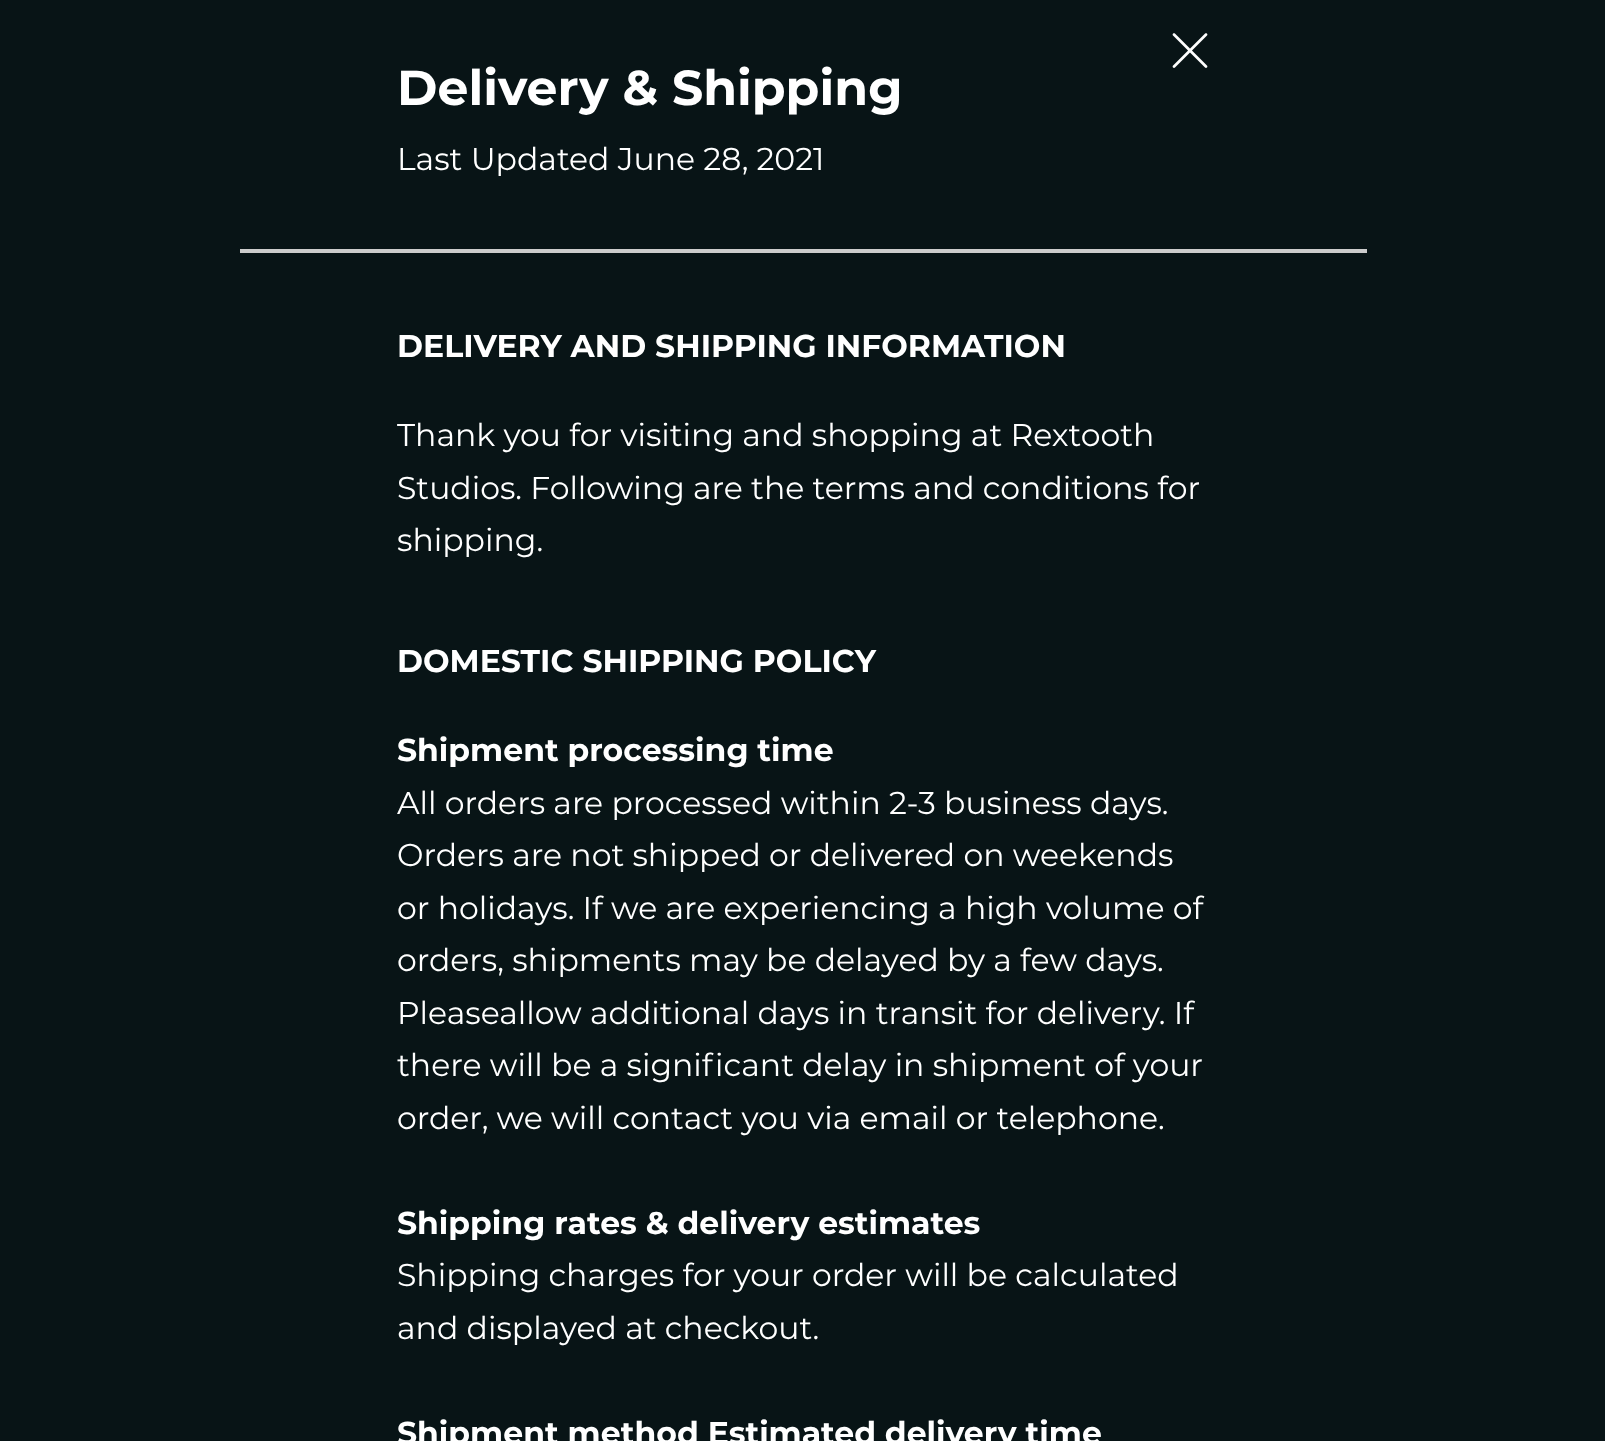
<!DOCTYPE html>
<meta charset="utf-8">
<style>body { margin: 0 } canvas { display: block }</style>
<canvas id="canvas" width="1605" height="1441"></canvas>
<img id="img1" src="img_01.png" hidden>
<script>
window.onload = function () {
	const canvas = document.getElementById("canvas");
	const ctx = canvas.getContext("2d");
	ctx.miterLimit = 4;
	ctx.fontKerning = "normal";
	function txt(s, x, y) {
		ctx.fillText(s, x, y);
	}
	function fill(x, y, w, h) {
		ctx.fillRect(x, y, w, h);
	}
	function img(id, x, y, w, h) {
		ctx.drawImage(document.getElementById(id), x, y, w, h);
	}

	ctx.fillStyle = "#081416";
	fill(0, 0, 1605, 1441);
	img("img1", 1172, 33, 36, 35);
	ctx.fillStyle = "#CCCCCC";
	fill(240, 249, 1127, 4);
	ctx.font = "bold 49px Montserrat";
	ctx.fillStyle = "#FFFFFF";
	txt("Delivery & Shipping", 397, 105);
	ctx.font = "31.5px Montserrat";
	txt("Last Updated June 28, 2021", 397, 170);
	ctx.font = "bold 31.5px Montserrat";
	txt("DELIVERY AND SHIPPING INFORMATION", 397, 357);
	ctx.font = "31.5px Montserrat";
	txt("Thank you for visiting and shopping at Rextooth", 397, 446);
	txt("Studios. Following are the terms and conditions for", 397, 499);
	txt("shipping.", 397, 551);
	ctx.font = "bold 31.5px Montserrat";
	txt("DOMESTIC SHIPPING POLICY", 397, 672);
	txt("Shipment processing time", 397, 761);
	ctx.font = "31.5px Montserrat";
	txt("All orders are processed within 2-3 business days.", 397, 814);
	txt("Orders are not shipped or delivered on weekends", 397, 866);
	txt("or holidays. If we are experiencing a high volume of", 397, 919);
	txt("orders, shipments may be delayed by a few days.", 397, 971);
	txt("Pleaseallow additional days in transit for delivery. If", 397, 1024);
	txt("there will be a significant delay in shipment of your", 397, 1076);
	txt("order, we will contact you via email or telephone.", 397, 1129);
	ctx.font = "bold 31.5px Montserrat";
	txt("Shipping rates & delivery estimates", 397, 1234);
	ctx.font = "31.5px Montserrat";
	txt("Shipping charges for your order will be calculated", 397, 1286);
	txt("and displayed at checkout.", 397, 1339);
	ctx.font = "bold 31.5px Montserrat";
	txt("Shipment method Estimated delivery time", 397, 1444);
};
</script>
